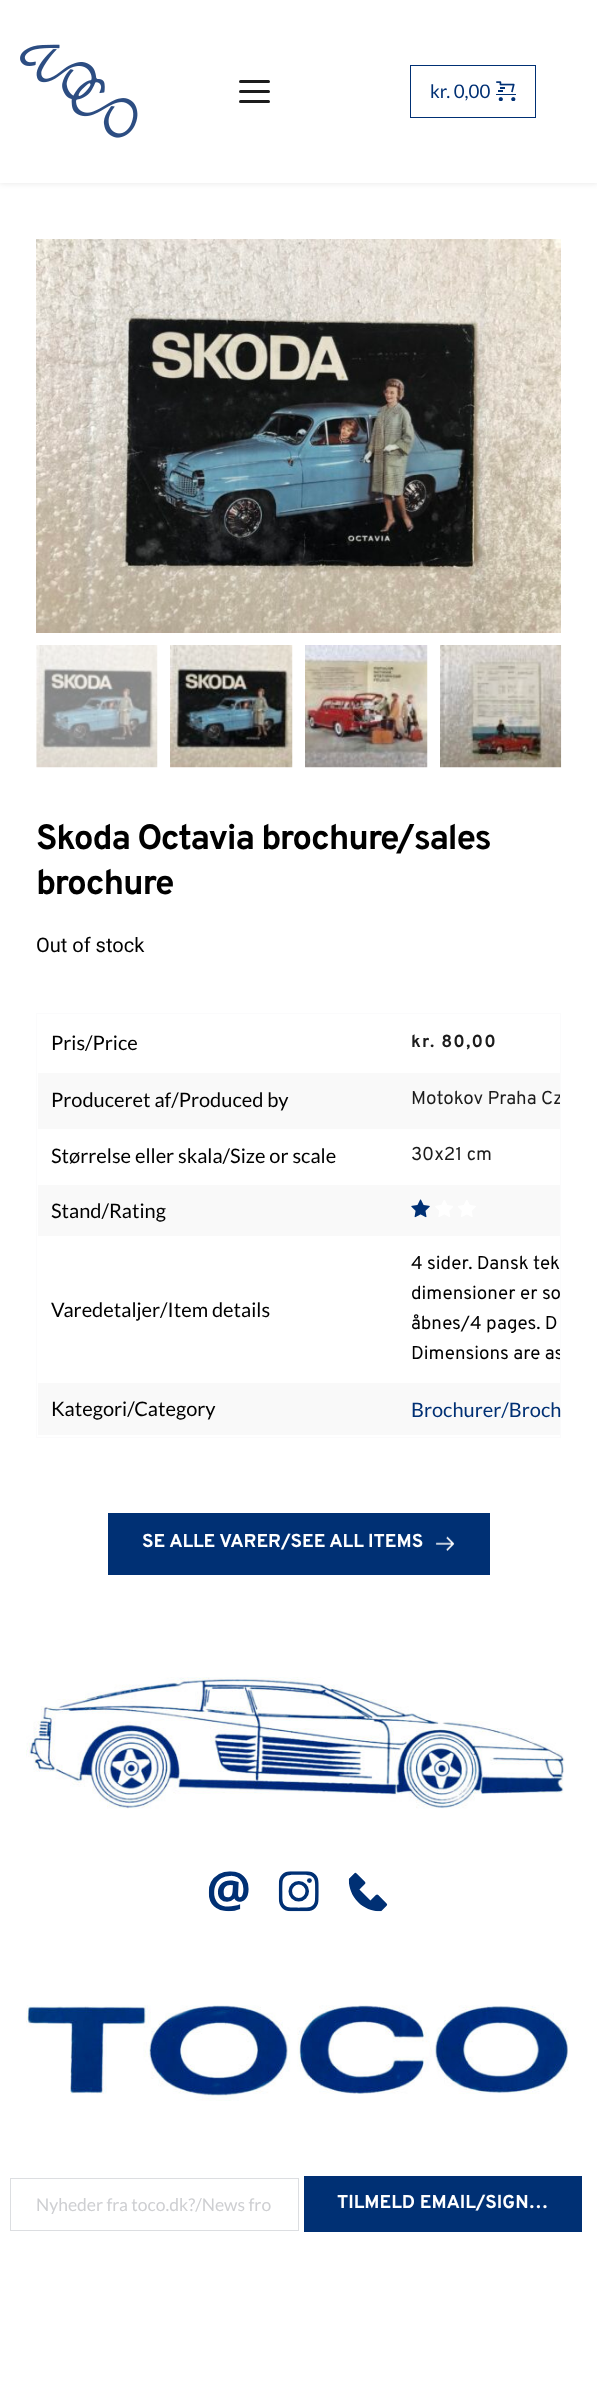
<!DOCTYPE html>
<meta charset="utf-8">
<style>body { margin: 0 } canvas { display: block }</style>
<canvas id="canvas" width="597" height="2389"></canvas>
<img id="img1" src="img_01.png" hidden>
<img id="img2" src="img_02.png" hidden>
<img id="img3" src="img_03.png" hidden>
<img id="img4" src="img_04.png" hidden>
<img id="img5" src="img_05.png" hidden>
<img id="img6" src="img_06.png" hidden>
<img id="img7" src="img_07.png" hidden>
<img id="img8" src="img_08.png" hidden>
<img id="img9" src="img_09.png" hidden>
<img id="img10" src="img_10.png" hidden>
<img id="img11" src="img_11.png" hidden>
<img id="img12" src="img_12.png" hidden>
<img id="img13" src="img_13.png" hidden>
<img id="img14" src="img_14.png" hidden>
<img id="img15" src="img_15.png" hidden>
<img id="img16" src="img_16.png" hidden>
<script>
window.onload = function () {
	const canvas = document.getElementById("canvas");
	const ctx = canvas.getContext("2d");
	ctx.miterLimit = 4;
	ctx.fontKerning = "normal";
	function txt(s, x, y) {
		ctx.fillText(s, x, y);
	}
	function fill(x, y, w, h) {
		ctx.fillRect(x, y, w, h);
	}
	function round(x, y, w, h, r) {
		ctx.beginPath();
		ctx.roundRect(x, y, w, h, r);
		ctx.fill();
	}
	function img(id, x, y, w, h) {
		ctx.drawImage(document.getElementById(id), x, y, w, h);
	}

	ctx.fillStyle = "#FFFFFF";
	fill(0, 0, 597, 2389);
	ctx.fillStyle = "rgba(0, 0, 0, 0.1)";
	ctx.filter = "blur(3px)";
	ctx.beginPath();
	ctx.rect(0, 0, 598, 183);
	ctx.fill();
	ctx.filter = "none";
	ctx.fillStyle = "#FFFFFF";
	fill(0, 0, 597, 183);
	img("img1", 20, 44, 118, 94);
	ctx.fillStyle = "#1C1C1C";
	round(239, 80, 31, 3, 1.5);
	round(239, 90, 31, 3, 1.5);
	round(239, 100, 31, 3, 1.5);
	ctx.strokeStyle = "#003074";
	ctx.strokeRect(410.5, 65.5, 125, 52);
	img("img2", 496, 81, 20, 20);
	img("img3", 36, 239, 525, 394);
	img("img4", 36, 645, 122, 123);
	img("img5", 170, 645, 123, 123);
	img("img6", 305, 645, 123, 123);
	img("img7", 440, 645, 122, 123);
	ctx.strokeStyle = "#FBFBFC";
	ctx.strokeRect(36.5, 1013.5, 524, 424);
	ctx.fillStyle = "#F9F9F9";
	fill(38, 1073, 522, 56);
	fill(38, 1185, 522, 51);
	img("img8", 411, 1199, 19, 19);
	img("img9", 435, 1200, 18, 17);
	img("img10", 458, 1200, 18, 17);
	fill(38, 1383, 522, 52);
	ctx.fillStyle = "#003074";
	fill(108, 1513, 382, 62);
	img("img11", 435, 1536, 20, 15);
	img("img12", 26, 1677, 539, 132);
	img("img13", 208, 1871, 41, 41);
	img("img14", 278, 1871, 41, 41);
	img("img15", 348, 1872, 40, 40);
	img("img16", 26, 2005, 543, 96);
	ctx.strokeStyle = "#DCDEE1";
	ctx.strokeRect(10.5, 2178.5, 288, 52);
	fill(304, 2176, 278, 56);
	ctx.font = "18.75px Lato";
	txt("kr. 0,00", 430, 98);
	ctx.letterSpacing = "-1.25px";
	ctx.font = "bold 35px Overpass";
	ctx.fillStyle = "#000000";
	txt("Skoda Octavia brochure/sales", 36, 849);
	txt("brochure", 36, 894);
	ctx.letterSpacing = "0px";
	ctx.font = "20px Roboto";
	txt("Out of stock", 36, 952);
	ctx.font = "20px Lato";
	txt("Pris/Price", 51, 1050);
	ctx.letterSpacing = "1.25px";
	ctx.font = "bold 17.5px Overpass";
	ctx.fillStyle = "#1C1C1C";
	txt("kr. 80,00", 411, 1047);
	ctx.letterSpacing = "0px";
	ctx.font = "20px Lato";
	ctx.fillStyle = "#000000";
	txt("Produceret af/Produced by", 51, 1107);
	ctx.save();
	ctx.beginPath();
	ctx.rect(38, 1014, 522, 422);
	ctx.clip();
	ctx.font = "18.75px Overpass";
	ctx.fillStyle = "#1C1C1C";
	txt("Motokov Praha Cz", 411, 1104);
	ctx.restore();
	txt("Størrelse eller skala/Size or scale", 51, 1163);
	ctx.font = "18.75px Overpass";
	ctx.fillStyle = "#1C1C1C";
	txt("30x21 cm", 411, 1160);
	ctx.font = "20px Lato";
	ctx.fillStyle = "#000000";
	txt("Stand/Rating", 51, 1218);
	txt("Varedetaljer/Item details", 51, 1317);
	ctx.font = "18.75px Overpass";
	txt("4 sider. Dansk tek", 411, 1269);
	txt("dimensioner er so", 411, 1299);
	txt("åbnes/4 pages. D", 411, 1329);
	ctx.save();
	ctx.beginPath();
	ctx.rect(38, 1014, 522, 422);
	ctx.clip();
	txt("Dimensions are as", 411, 1359);
	ctx.restore();
	ctx.font = "20px Lato";
	txt("Kategori/Category", 51, 1416);
	ctx.fillStyle = "#003074";
	txt("Brochurer/Broch", 411, 1417);
	ctx.font = "bold 18.75px Overpass";
	ctx.fillStyle = "#FFFFFF";
	txt("SE ALLE VARER/SEE ALL ITEMS", 142, 1547);
	ctx.font = "17.5px Lato";
	ctx.fillStyle = "#CECFD2";
	txt("Nyheder fra toco.dk?/News fro", 36, 2211);
	ctx.font = "bold 18.75px Overpass";
	ctx.fillStyle = "#FFFFFF";
	txt("TILMELD EMAIL/SIGN…", 337, 2208);
};
</script>
